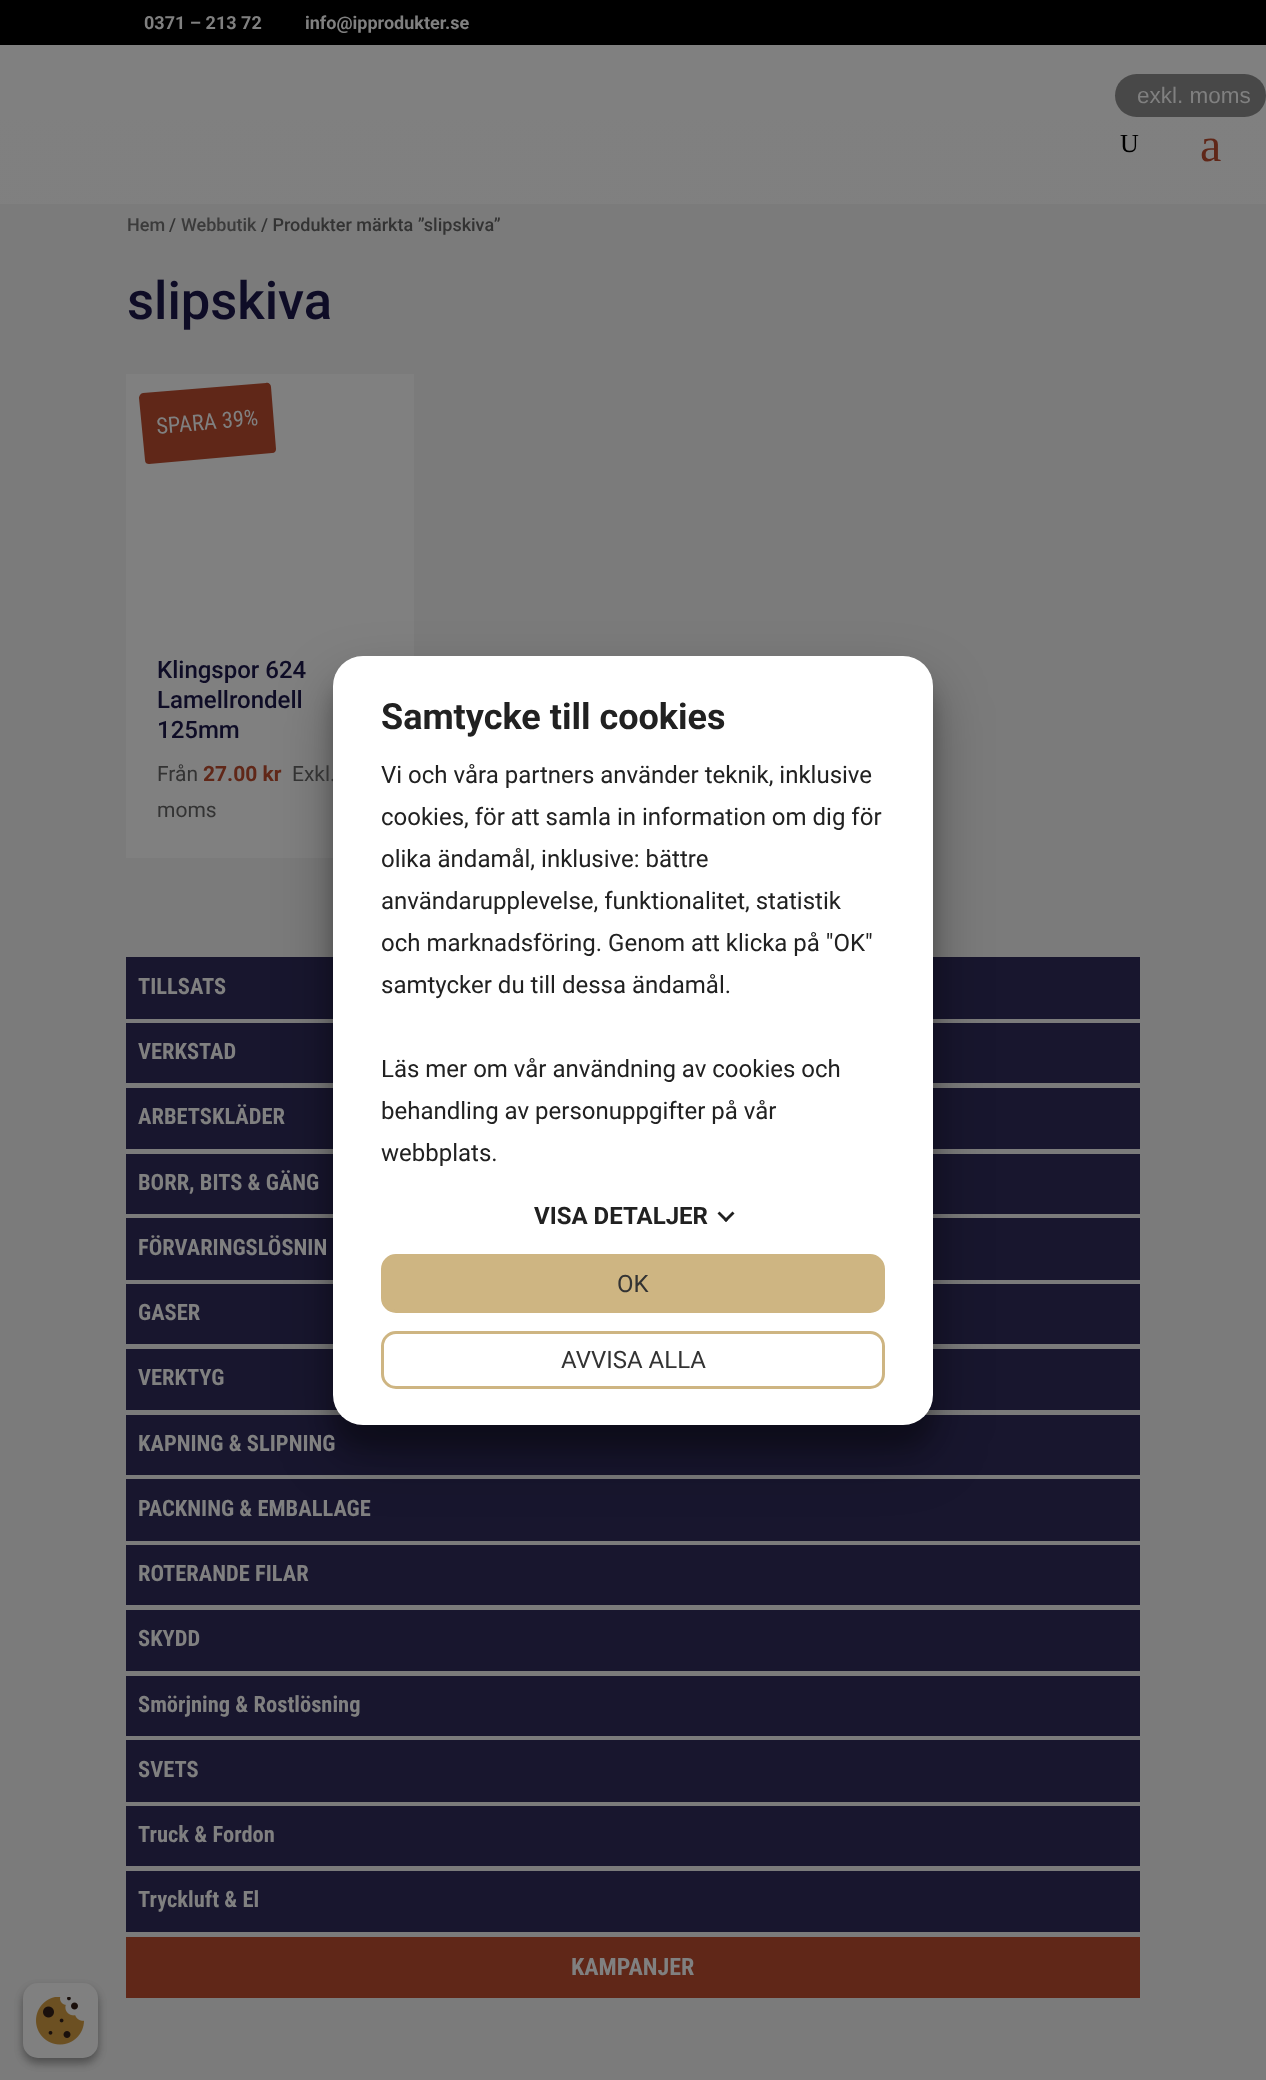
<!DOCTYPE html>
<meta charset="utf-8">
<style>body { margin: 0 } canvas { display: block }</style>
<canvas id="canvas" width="1266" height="2080"></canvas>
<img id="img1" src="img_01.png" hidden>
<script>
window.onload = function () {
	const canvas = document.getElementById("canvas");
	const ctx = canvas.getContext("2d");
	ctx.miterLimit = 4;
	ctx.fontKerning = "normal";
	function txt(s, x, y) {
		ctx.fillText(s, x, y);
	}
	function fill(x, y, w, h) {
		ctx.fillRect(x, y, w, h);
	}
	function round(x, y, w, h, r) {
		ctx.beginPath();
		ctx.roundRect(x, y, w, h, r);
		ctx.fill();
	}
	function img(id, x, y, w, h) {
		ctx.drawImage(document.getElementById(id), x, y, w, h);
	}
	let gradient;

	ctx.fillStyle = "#808080";
	fill(0, 0, 1266, 2080);
	ctx.fillStyle = "#000000";
	fill(0, 0, 1266, 45);
	ctx.fillStyle = "#7B7B7B";
	fill(0, 120, 1266, 1960);
	gradient = ctx.createLinearGradient(633, 45, 633, 204);
	gradient.addColorStop(0, "#808080");
	gradient.addColorStop(1, "rgba(128, 128, 128, 0.94)");
	ctx.fillStyle = gradient;
	fill(0, 120, 1266, 84);
	ctx.fillStyle = "#808080";
	fill(126, 374, 288, 484);
	ctx.fillStyle = "#602718";
	ctx.beginPath();
	ctx.moveTo(143, 393);
	ctx.lineTo(266, 383);
	ctx.bezierCurveTo(268, 382, 271, 384, 271, 387);
	ctx.lineTo(276, 449);
	ctx.bezierCurveTo(276, 451, 275, 453, 272, 453);
	ctx.lineTo(149, 464);
	ctx.bezierCurveTo(147, 464, 145, 463, 145, 460);
	ctx.lineTo(139, 398);
	ctx.bezierCurveTo(139, 396, 141, 393, 143, 393);
	ctx.closePath();
	ctx.fill();
	ctx.fillStyle = "#18162E";
	fill(126, 957, 1014, 62);
	fill(126, 1023, 1014, 60);
	fill(126, 1088, 1014, 61);
	fill(126, 1154, 1014, 60);
	fill(126, 1218, 1014, 62);
	fill(126, 1284, 1014, 60);
	fill(126, 1349, 1014, 61);
	fill(126, 1415, 1014, 60);
	fill(126, 1479, 1014, 62);
	fill(126, 1545, 1014, 60);
	fill(126, 1610, 1014, 61);
	fill(126, 1676, 1014, 60);
	fill(126, 1740, 1014, 62);
	fill(126, 1806, 1014, 60);
	fill(126, 1871, 1014, 61);
	ctx.fillStyle = "#602718";
	fill(126, 1937, 1014, 61);
	ctx.fillStyle = "#484848";
	round(1115, 74, 151, 43, 21.5);
	ctx.fillStyle = "rgba(0, 0, 0, 0.22)";
	ctx.filter = "blur(9px)";
	ctx.beginPath();
	ctx.roundRect(333, 678, 600, 770, 30);
	ctx.fill();
	ctx.filter = "none";
	ctx.fillStyle = "rgba(0, 0, 0, 0.3)";
	ctx.filter = "blur(28.5px)";
	ctx.beginPath();
	ctx.roundRect(333, 684, 600, 770, 30);
	ctx.fill();
	ctx.filter = "none";
	ctx.fillStyle = "rgba(0, 0, 0, 0.23)";
	ctx.filter = "blur(4.5px)";
	ctx.beginPath();
	ctx.roundRect(23, 1988, 75, 75, 15);
	ctx.fill();
	ctx.filter = "none";
	ctx.fillStyle = "rgba(0, 0, 0, 0.16)";
	ctx.filter = "blur(4.5px)";
	ctx.beginPath();
	ctx.roundRect(23, 1988, 75, 75, 15);
	ctx.fill();
	ctx.filter = "none";
	ctx.fillStyle = "#808080";
	round(23, 1983, 75, 75, 15);
	img("img1", 36, 1997, 48, 48);
	ctx.font = "bold 18px Roboto";
	txt("0371 – 213 72", 144, 29);
	txt("info@ipprodukter.se", 305, 29);
	ctx.font = "26px Liberation Serif";
	ctx.fillStyle = "#000000";
	txt("U", 1120, 152);
	ctx.font = "48px Liberation Serif";
	ctx.fillStyle = "#602718";
	txt("a", 1200, 161);
	ctx.font = "500 18px Roboto";
	ctx.fillStyle = "#3B3B3B";
	txt("Hem", 127, 231);
	ctx.fillStyle = "#333333";
	txt("/", 169, 231);
	ctx.fillStyle = "#3B3B3B";
	txt("Webbutik", 181, 231);
	ctx.fillStyle = "#333333";
	txt("/ Produkter märkta ”slipskiva”", 261, 231);
	ctx.font = "500 52.5px Roboto";
	ctx.fillStyle = "#0E0C26";
	txt("slipskiva", 127, 319);
	ctx.font = "22.5px Roboto Condensed";
	ctx.fillStyle = "#808080";
	ctx.save();
	ctx.translate(157, 434);
	ctx.rotate(-5 * Math.PI / 180);
	ctx.fillText("SPARA 39%", 0, 0);
	ctx.restore();
	ctx.font = "500 24px Roboto";
	ctx.fillStyle = "#0E0C26";
	txt("Klingspor 624", 157, 678);
	txt("Lamellrondell", 157, 708);
	txt("125mm", 157, 738);
	ctx.font = "21px Roboto";
	ctx.fillStyle = "#333333";
	txt("Från", 157, 781);
	ctx.font = "bold 21px Roboto";
	ctx.fillStyle = "#602718";
	txt("27.00 kr", 203, 781);
	ctx.font = "21px Roboto";
	ctx.fillStyle = "#333333";
	txt("Exkl.", 292, 781);
	txt("moms", 157, 817);
	ctx.font = "bold 22.5px Roboto Condensed";
	ctx.fillStyle = "#808080";
	txt("TILLSATS", 138, 994);
	txt("VERKSTAD", 138, 1059);
	txt("ARBETSKLÄDER", 138, 1124);
	txt("BORR, BITS & GÄNG", 138, 1190);
	txt("FÖRVARINGSLÖSNIN", 138, 1255);
	txt("GASER", 138, 1320);
	txt("VERKTYG", 138, 1385);
	txt("KAPNING & SLIPNING", 138, 1451);
	txt("PACKNING & EMBALLAGE", 138, 1516);
	txt("ROTERANDE FILAR", 138, 1581);
	txt("SKYDD", 138, 1646);
	txt("Smörjning & Rostlösning", 138, 1712);
	txt("SVETS", 138, 1777);
	txt("Truck & Fordon", 138, 1842);
	txt("Tryckluft & El", 138, 1907);
	ctx.font = "bold 24px Roboto Condensed";
	txt("KAMPANJER", 571, 1975);
	ctx.font = "22.5px Liberation Sans";
	txt("exkl. moms", 1137, 103);
	ctx.fillStyle = "#FFFFFF";
	round(333, 656, 600, 769, 30);
	ctx.font = "bold 36px Roboto";
	ctx.fillStyle = "#212121";
	txt("Samtycke till cookies", 381, 729);
	ctx.font = "24px Roboto";
	txt("Vi och våra partners använder teknik, inklusive", 381, 783);
	txt("cookies, för att samla in information om dig för", 381, 825);
	txt("olika ändamål, inklusive: bättre", 381, 867);
	txt("användarupplevelse, funktionalitet, statistik", 381, 909);
	txt("och marknadsföring. Genom att klicka på \"OK\"", 381, 951);
	txt("samtycker du till dessa ändamål.", 381, 993);
	txt("Läs mer om vår användning av cookies och", 381, 1077);
	txt("behandling av personuppgifter på vår", 381, 1119);
	txt("webbplats.", 381, 1161);
	ctx.font = "bold 24px Roboto";
	txt("VISA DETALJER", 534, 1224);
	ctx.beginPath();
	ctx.moveTo(732.5, 1211.5);
	ctx.lineTo(734.5, 1213.5);
	ctx.lineTo(726, 1222);
	ctx.lineTo(724, 1220);
	ctx.closePath();
	ctx.fill();
	ctx.beginPath();
	ctx.moveTo(719.5, 1211.5);
	ctx.lineTo(728, 1220);
	ctx.lineTo(726, 1222);
	ctx.lineTo(717.5, 1213.5);
	ctx.closePath();
	ctx.fill();
	ctx.fillStyle = "#CEB582";
	ctx.beginPath();
	ctx.roundRect(382.5, 1255.5, 501, 56, 13.5);
	ctx.fill();
	ctx.strokeStyle = "#CEB582";
	ctx.lineWidth = 3;
	ctx.stroke();
	ctx.font = "24px Roboto";
	ctx.fillStyle = "#333333";
	txt("OK", 617, 1292);
	ctx.beginPath();
	ctx.roundRect(382.5, 1332.5, 501, 55, 13.5);
	ctx.stroke();
	txt("AVVISA ALLA", 561, 1368);
};
</script>
